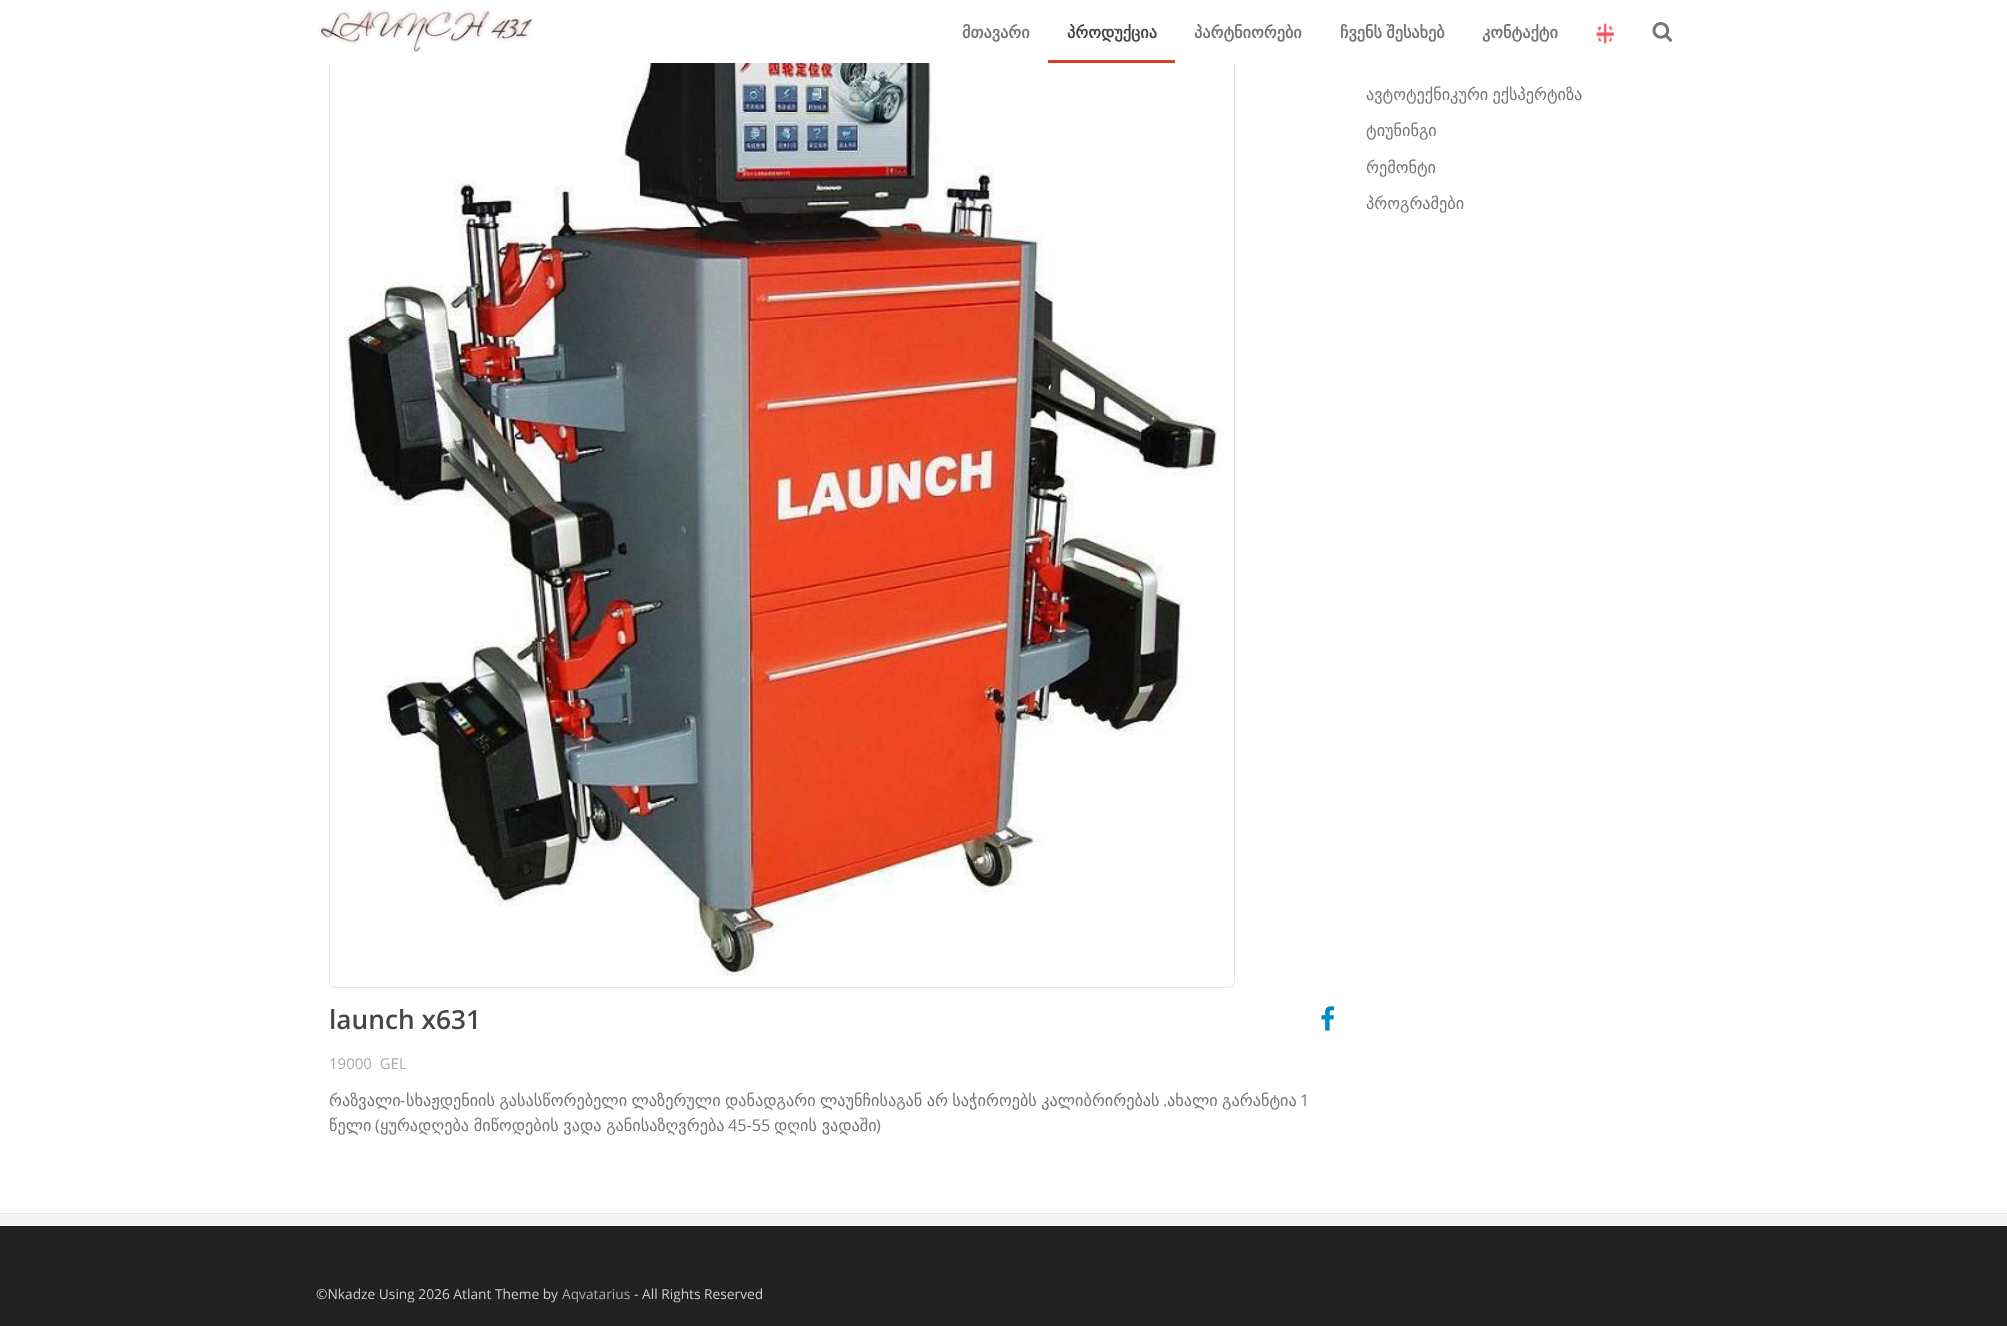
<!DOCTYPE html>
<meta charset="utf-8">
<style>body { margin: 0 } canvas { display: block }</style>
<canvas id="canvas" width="2007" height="1326"></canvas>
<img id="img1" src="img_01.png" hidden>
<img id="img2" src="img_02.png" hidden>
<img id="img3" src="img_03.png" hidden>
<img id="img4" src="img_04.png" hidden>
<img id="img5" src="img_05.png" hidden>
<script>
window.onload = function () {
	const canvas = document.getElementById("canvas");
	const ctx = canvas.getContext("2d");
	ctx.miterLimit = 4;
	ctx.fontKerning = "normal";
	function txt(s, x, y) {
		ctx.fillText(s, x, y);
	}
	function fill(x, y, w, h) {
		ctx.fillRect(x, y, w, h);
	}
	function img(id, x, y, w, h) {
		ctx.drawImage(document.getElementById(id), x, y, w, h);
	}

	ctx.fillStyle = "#FFFFFF";
	fill(0, 0, 2007, 1326);
	ctx.beginPath();
	ctx.roundRect(329.5, -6.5, 905, 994, 5.5);
	ctx.strokeStyle = "#E5E5E5";
	ctx.stroke();
	fill(329, 0, 906, 63);
	img("img1", 319, 9, 215, 45);
	ctx.fillStyle = "#E0401D";
	fill(1048, 60, 127, 3);
	img("img2", 1596, 23, 19, 21);
	img("img3", 1652, 22, 21, 20);
	ctx.fillStyle = "#E5E5E5";
	fill(0, 1213, 2007, 1);
	img("img4", 344, 63, 880, 913);
	img("img5", 1321, 1006, 14, 25);
	ctx.fillStyle = "#F5F5F5";
	fill(0, 1214, 2007, 12);
	ctx.fillStyle = "#222222";
	fill(0, 1226, 2007, 100);
	ctx.font = "bold 16.25px DejaVu Sans";
	ctx.fillStyle = "#757575";
	txt("მთავარი", 962, 38);
	ctx.fillStyle = "#454545";
	txt("პროდუქცია", 1067, 38);
	ctx.fillStyle = "#757575";
	txt("პარტნიორები", 1194, 38);
	ctx.wordSpacing = "-1px";
	txt("ჩვენს შესახებ", 1340, 38);
	ctx.wordSpacing = "0px";
	txt("კონტაქტი", 1482, 38);
	ctx.wordSpacing = "-1px";
	ctx.font = "16.25px DejaVu Sans";
	txt("ავტოტექნიკური ექსპერტიზა", 1366, 100);
	ctx.wordSpacing = "0px";
	txt("ტიუნინგი", 1366, 136);
	txt("რემონტი", 1366, 173);
	txt("პროგრამები", 1366, 209);
	ctx.font = "600 26.25px Open Sans";
	ctx.fillStyle = "#454545";
	txt("launch x631", 329, 1029);
	ctx.font = "15px Open Sans";
	ctx.fillStyle = "#AAAAAA";
	txt("19000  GEL", 329, 1069);
	ctx.font = "16.25px DejaVu Sans";
	ctx.fillStyle = "#757575";
	txt("რაზვალი", 329, 1106);
	ctx.font = "16.25px Open Sans";
	txt("-", 400, 1106);
	ctx.wordSpacing = "-0.75px";
	ctx.font = "16.25px DejaVu Sans";
	txt("სხაჟდენიის გასასწორებელი ლაზერული დანადგარი ლაუნჩისაგან არ საჭიროებს კალიბრირებას", 406, 1106);
	txt("ახალი გარანტია", 1167, 1106);
	ctx.wordSpacing = "0px";
	ctx.font = "16.25px Open Sans";
	txt("1", 1300, 1106);
	txt(".", 1163, 1106);
	ctx.font = "16.25px DejaVu Sans";
	txt("წელი", 329, 1131);
	ctx.font = "16.25px Open Sans";
	txt("(", 375, 1131);
	ctx.wordSpacing = "-0.5px";
	ctx.font = "16.25px DejaVu Sans";
	txt("ყურადღება მიწოდების ვადა განისაზღვრება", 380, 1131);
	ctx.wordSpacing = "0px";
	ctx.font = "16.25px Open Sans";
	txt("45-55", 728, 1131);
	ctx.wordSpacing = "-0.5px";
	ctx.font = "16.25px DejaVu Sans";
	txt("დღის ვადაში", 774, 1131);
	ctx.wordSpacing = "0px";
	ctx.font = "16.25px Open Sans";
	txt(")", 876, 1131);
	ctx.font = "13.75px Open Sans";
	ctx.fillStyle = "#CCCCCC";
	txt("©Nkadze Using 2026 Atlant Theme by", 316, 1299);
	ctx.fillStyle = "#AAAAAA";
	txt("Aqvatarius", 562, 1299);
	ctx.fillStyle = "#CCCCCC";
	txt("- All Rights Reserved", 634, 1299);
};
</script>
